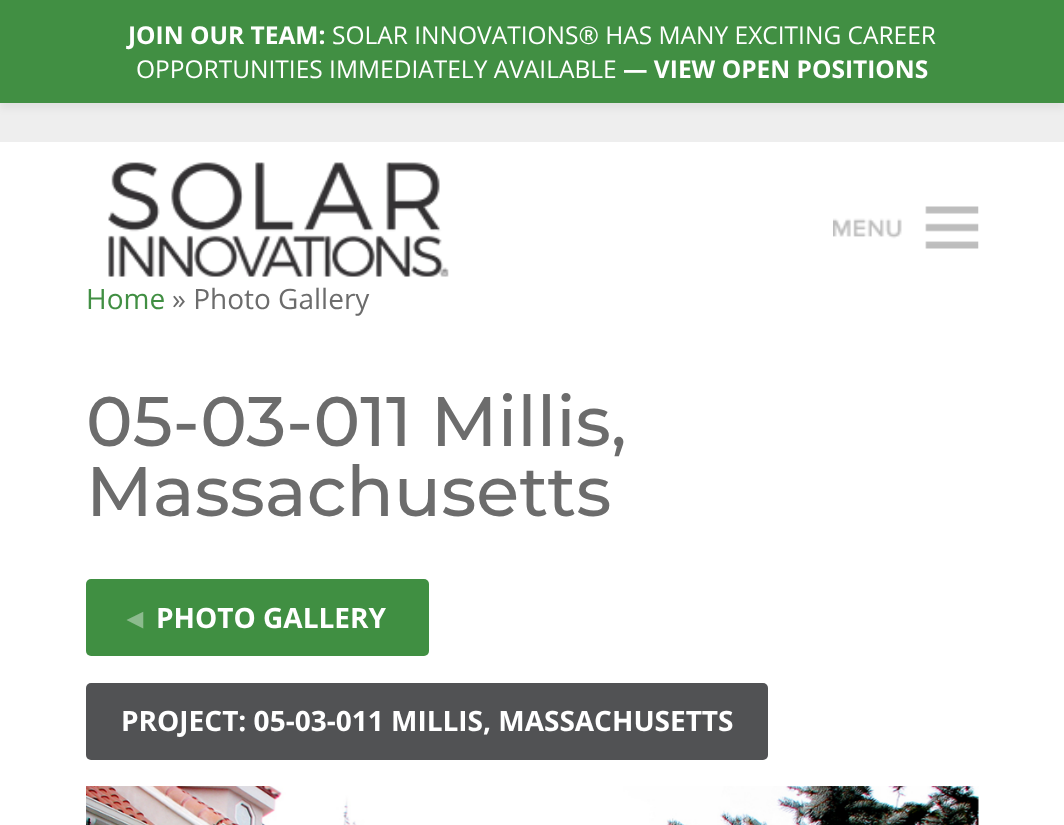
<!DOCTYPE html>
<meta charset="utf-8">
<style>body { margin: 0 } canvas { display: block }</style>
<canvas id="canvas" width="1064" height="825"></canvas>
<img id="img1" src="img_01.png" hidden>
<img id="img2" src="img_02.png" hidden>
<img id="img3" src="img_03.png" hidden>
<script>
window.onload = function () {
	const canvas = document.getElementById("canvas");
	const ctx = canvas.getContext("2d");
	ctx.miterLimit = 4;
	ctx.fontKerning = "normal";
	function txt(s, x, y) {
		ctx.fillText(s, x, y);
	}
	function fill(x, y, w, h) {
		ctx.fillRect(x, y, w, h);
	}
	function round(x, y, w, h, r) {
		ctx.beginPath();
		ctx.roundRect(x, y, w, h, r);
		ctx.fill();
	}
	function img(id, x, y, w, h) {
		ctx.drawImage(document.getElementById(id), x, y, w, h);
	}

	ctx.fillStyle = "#FFFFFF";
	fill(0, 0, 1064, 825);
	ctx.fillStyle = "#EEEEEE";
	fill(0, 103, 1064, 39);
	ctx.fillStyle = "rgba(0, 0, 0, 0.05)";
	ctx.filter = "blur(3.5px)";
	ctx.beginPath();
	ctx.rect(0, 5, 1064, 104);
	ctx.fill();
	ctx.filter = "none";
	ctx.fillStyle = "#418F43";
	fill(0, 0, 1064, 103);
	img("img1", 108, 162, 341, 115);
	img("img2", 833, 206, 146, 43);
	ctx.fillStyle = "#408F42";
	round(86, 579, 343, 77, 5);
	ctx.fillStyle = "#515254";
	round(86, 683, 682, 77, 5);
	img("img3", 86, 786, 893, 39);
	ctx.font = "bold 24.5px Open Sans";
	ctx.fillStyle = "#FFFFFF";
	txt("JOIN OUR TEAM:", 128, 44);
	ctx.font = "24.5px Open Sans";
	txt("SOLAR INNOVATIONS® HAS MANY EXCITING CAREER", 332, 44);
	txt("OPPORTUNITIES IMMEDIATELY AVAILABLE", 136, 78);
	ctx.font = "bold 24.5px Open Sans";
	txt("— VIEW OPEN POSITIONS", 623, 78);
	ctx.font = "28px Open Sans";
	ctx.fillStyle = "#418F43";
	txt("Home", 86, 309);
	ctx.fillStyle = "#6C6C6C";
	txt("» Photo Gallery", 172, 309);
	ctx.font = "500 70px Montserrat";
	txt("05-03-011 Millis,", 86, 446);
	txt("Massachusetts", 86, 516);
	ctx.font = "bold 28px Liberation Sans";
	ctx.fillStyle = "#8CBB8E";
	txt("◄", 121, 628);
	ctx.font = "bold 28px Open Sans";
	ctx.fillStyle = "#FFFFFF";
	txt("PHOTO GALLERY", 156, 628);
	txt("PROJECT: 05-03-011 MILLIS, MASSACHUSETTS", 121, 731);
};
</script>
